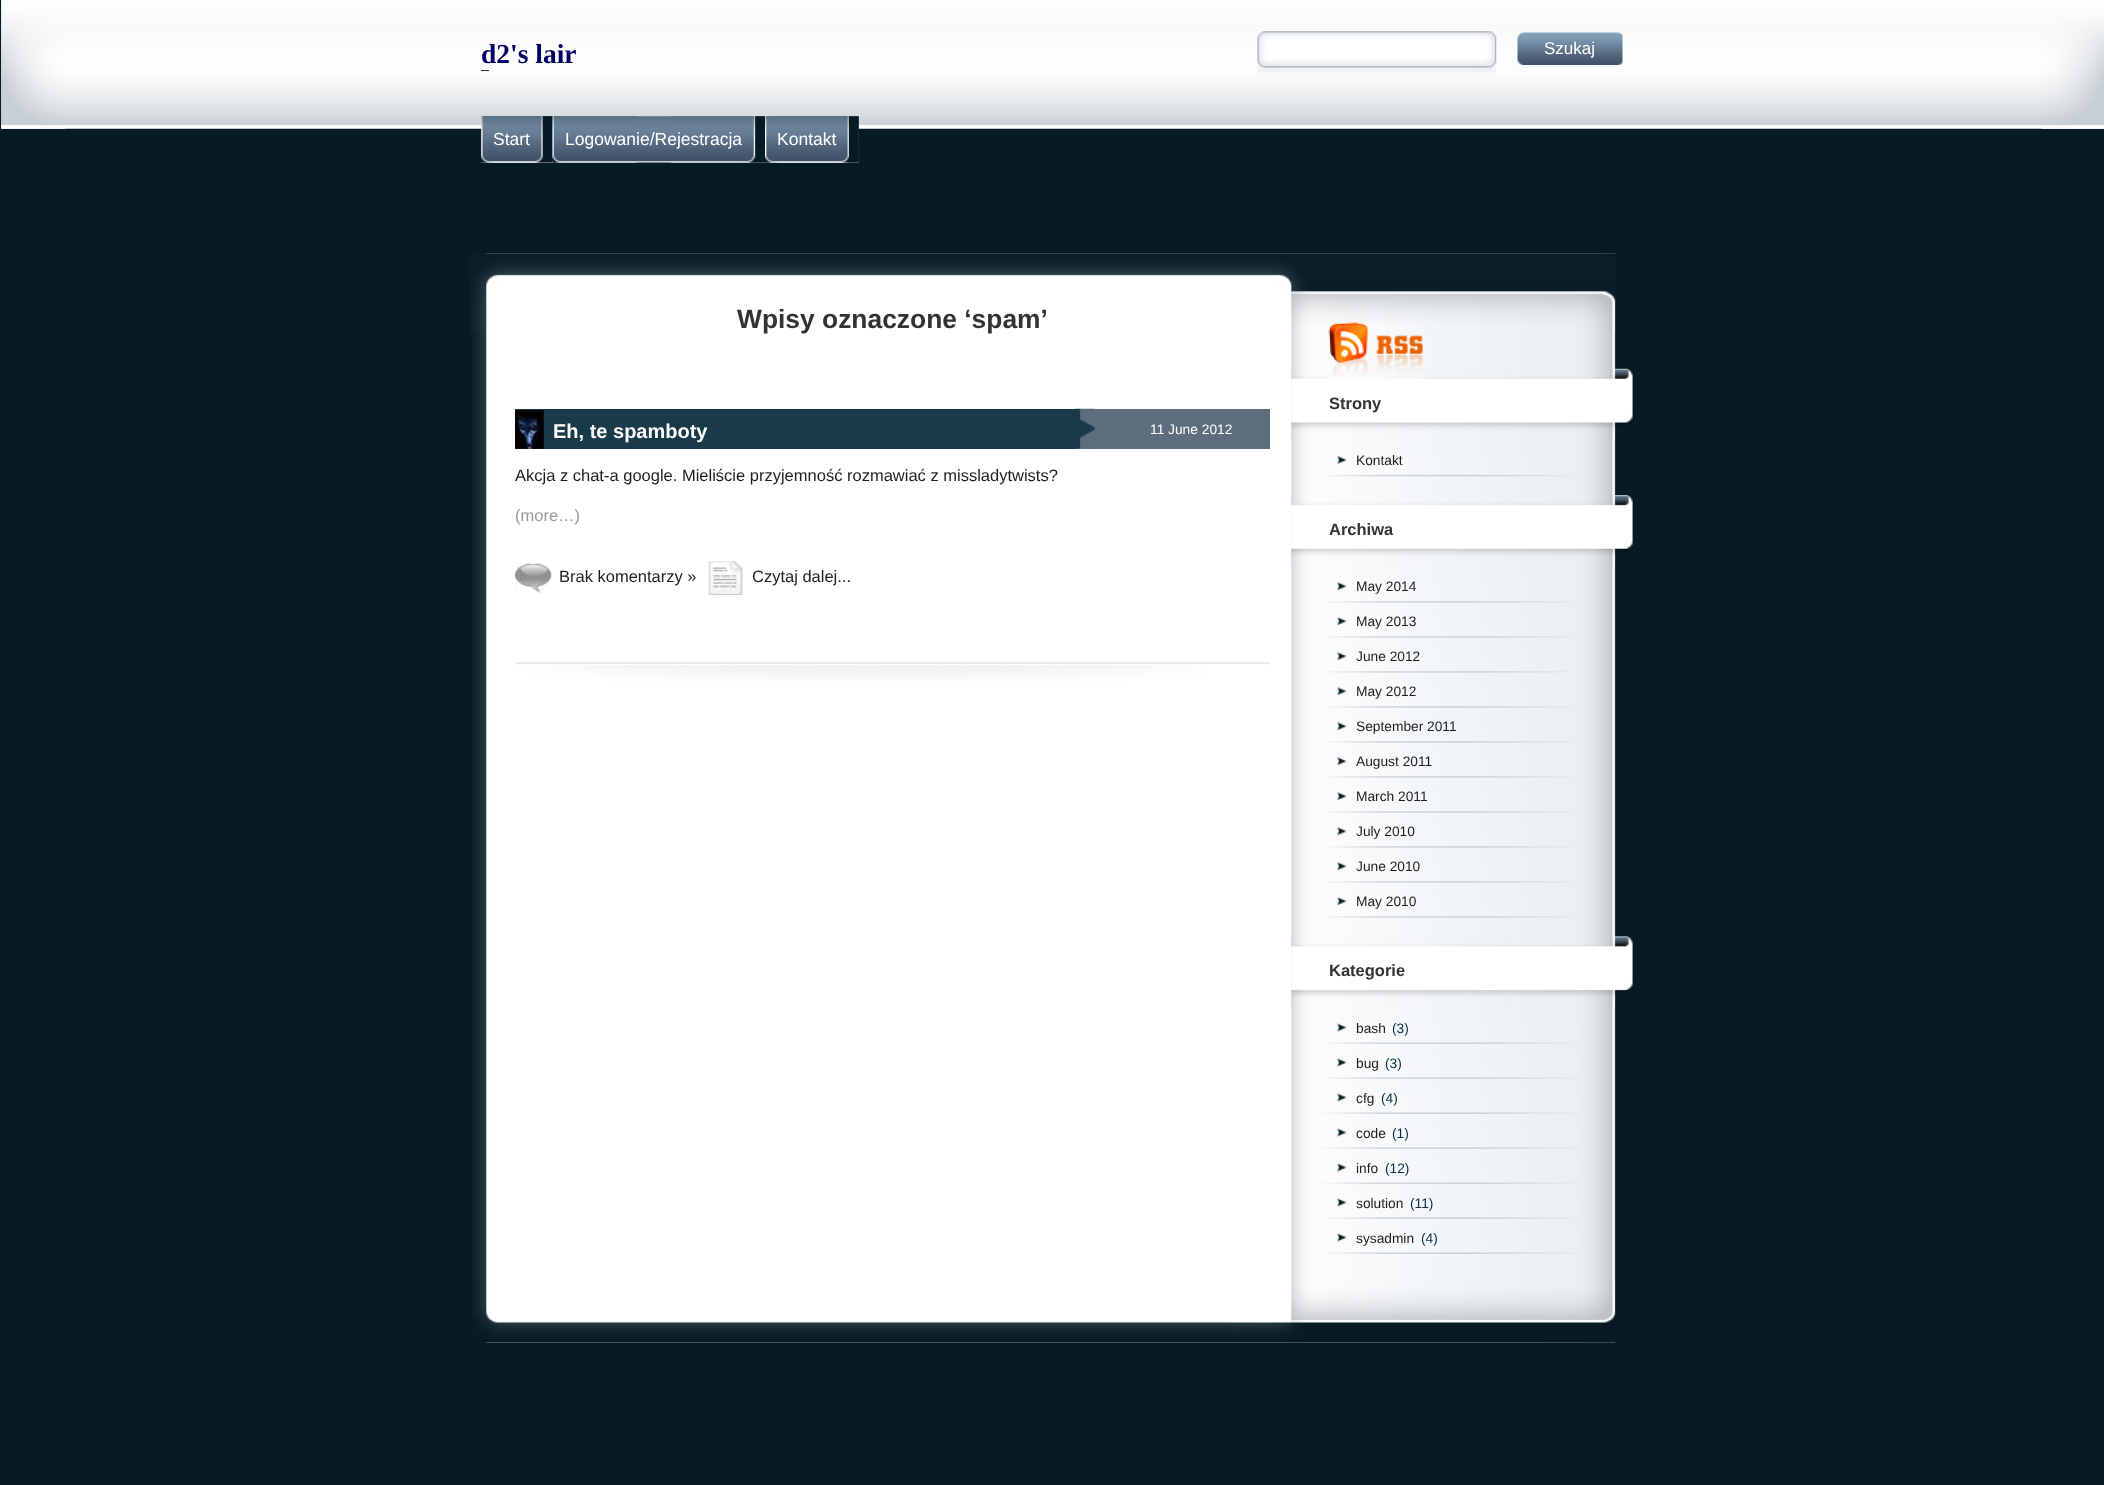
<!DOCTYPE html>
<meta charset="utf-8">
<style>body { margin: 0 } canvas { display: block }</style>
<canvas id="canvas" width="2104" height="1485"></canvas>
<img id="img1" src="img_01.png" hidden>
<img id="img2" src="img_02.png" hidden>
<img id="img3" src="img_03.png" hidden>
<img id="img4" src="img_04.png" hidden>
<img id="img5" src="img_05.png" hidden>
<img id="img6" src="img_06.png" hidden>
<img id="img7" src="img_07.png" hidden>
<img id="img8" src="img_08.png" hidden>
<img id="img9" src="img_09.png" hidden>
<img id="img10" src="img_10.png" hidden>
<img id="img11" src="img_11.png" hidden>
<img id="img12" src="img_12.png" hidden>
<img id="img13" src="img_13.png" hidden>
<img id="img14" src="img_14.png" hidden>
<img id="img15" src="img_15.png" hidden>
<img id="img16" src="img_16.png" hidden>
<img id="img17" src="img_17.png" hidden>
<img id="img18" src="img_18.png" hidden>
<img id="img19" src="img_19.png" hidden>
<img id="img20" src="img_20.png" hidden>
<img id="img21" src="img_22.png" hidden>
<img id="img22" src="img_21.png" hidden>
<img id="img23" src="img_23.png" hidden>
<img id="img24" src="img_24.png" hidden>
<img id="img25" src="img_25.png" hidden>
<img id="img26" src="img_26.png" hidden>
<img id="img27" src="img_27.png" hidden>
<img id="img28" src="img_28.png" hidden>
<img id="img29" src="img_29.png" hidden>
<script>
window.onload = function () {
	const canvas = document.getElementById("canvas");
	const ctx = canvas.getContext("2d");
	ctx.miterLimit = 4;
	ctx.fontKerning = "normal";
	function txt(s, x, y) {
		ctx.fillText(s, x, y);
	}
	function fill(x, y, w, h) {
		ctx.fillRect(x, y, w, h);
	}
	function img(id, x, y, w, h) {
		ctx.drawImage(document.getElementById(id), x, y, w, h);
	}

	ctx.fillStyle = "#071B24";
	fill(0, 0, 2104, 1485);
	img("img1", 1, 0, 2103, 129);
	img("img2", 1, 0, 64, 129);
	img("img3", 2041, 18, 63, 111);
	ctx.fillStyle = "#333333";
	fill(481, 70, 8, 1);
	img("img4", 1257, 31, 240, 42);
	img("img5", 1517, 32, 106, 33);
	img("img6", 481, 116, 378, 47);
	img("img7", 481, 116, 72, 47);
	img("img8", 493, 116, 60, 47);
	img("img9", 552, 116, 85, 47);
	img("img10", 671, 116, 94, 47);
	img("img11", 765, 116, 84, 47);
	img("img12", 777, 116, 82, 47);
	img("img13", 471, 253, 1145, 1090);
	img("img14", 469, 253, 1147, 78);
	img("img15", 471, 1280, 1145, 63);
	ctx.fillStyle = "#193A48";
	fill(515, 409, 560, 40);
	img("img16", 515, 410, 29, 39);
	ctx.fillStyle = "#5D6D7E";
	fill(1075, 409, 195, 40);
	img("img17", 1075, 408, 20, 41);
	img("img18", 515, 563, 37, 30);
	img("img19", 708, 561, 35, 34);
	img("img20", 515, 662, 755, 19);
	img("img21", 1291, 368, 343, 73);
	img("img22", 1328, 322, 95, 57);
	img("img23", 1321, 456, 253, 21);
	img("img24", 1291, 495, 343, 73);
	img("img25", 1324, 582, 249, 21);
	img("img25", 1324, 617, 249, 21);
	img("img25", 1324, 652, 249, 21);
	img("img25", 1324, 687, 249, 21);
	img("img25", 1324, 722, 249, 21);
	img("img25", 1324, 757, 249, 21);
	img("img26", 1324, 792, 249, 21);
	img("img25", 1324, 827, 249, 21);
	img("img25", 1324, 862, 249, 21);
	img("img25", 1324, 897, 249, 21);
	img("img27", 1291, 936, 343, 73);
	img("img28", 1321, 1023, 258, 21);
	img("img28", 1321, 1058, 258, 21);
	img("img28", 1321, 1093, 258, 21);
	img("img28", 1321, 1128, 258, 21);
	img("img29", 1321, 1163, 258, 21);
	img("img28", 1321, 1198, 258, 21);
	img("img28", 1321, 1233, 258, 21);
	ctx.font = "bold 27.5px Liberation Serif";
	ctx.fillStyle = "#000066";
	txt("d2's lair", 481, 63);
	ctx.font = "17px Liberation Sans";
	ctx.fillStyle = "#FFFFFF";
	txt("Szukaj", 1544, 54);
	ctx.font = "17.5px Liberation Sans";
	txt("Start", 493, 145);
	txt("Logowanie/Rejestracja", 565, 145);
	txt("Kontakt", 777, 145);
	ctx.font = "bold 26.4px Liberation Sans";
	ctx.fillStyle = "#333333";
	txt("Wpisy oznaczone ‘spam’", 737, 328);
	ctx.font = "bold 20px Liberation Sans";
	ctx.fillStyle = "#FFFFFF";
	txt("Eh, te spamboty", 553, 438);
	ctx.font = "13.75px Liberation Sans";
	txt("11 June 2012", 1150, 434);
	ctx.font = "16.5px Liberation Sans";
	ctx.fillStyle = "#1E1E1E";
	txt("Akcja z chat-a google. Mieliście przyjemność rozmawiać z missladytwists?", 515, 481);
	ctx.fillStyle = "#999999";
	txt("(more…)", 515, 521);
	ctx.fillStyle = "#1E1E1E";
	txt("Brak komentarzy »", 559, 582);
	txt("Czytaj dalej...", 752, 582);
	ctx.font = "bold 16.5px Liberation Sans";
	ctx.fillStyle = "#333333";
	txt("Strony", 1329, 409);
	ctx.font = "13.75px Liberation Sans";
	ctx.fillStyle = "#1E1E1E";
	txt("Kontakt", 1356, 465);
	ctx.font = "bold 16.5px Liberation Sans";
	ctx.fillStyle = "#333333";
	txt("Archiwa", 1329, 535);
	ctx.font = "13.75px Liberation Sans";
	ctx.fillStyle = "#1E1E1E";
	txt("May 2014", 1356, 591);
	txt("May 2013", 1356, 626);
	txt("June 2012", 1356, 661);
	txt("May 2012", 1356, 696);
	txt("September 2011", 1356, 731);
	txt("August 2011", 1356, 766);
	txt("March 2011", 1356, 801);
	txt("July 2010", 1356, 836);
	txt("June 2010", 1356, 871);
	txt("May 2010", 1356, 906);
	ctx.font = "bold 16.5px Liberation Sans";
	ctx.fillStyle = "#333333";
	txt("Kategorie", 1329, 976);
	ctx.font = "13.75px Liberation Sans";
	ctx.fillStyle = "#1E1E1E";
	txt("bash", 1356, 1033);
	ctx.fillStyle = "#013044";
	txt("(3)", 1392, 1033);
	ctx.fillStyle = "#1E1E1E";
	txt("bug", 1356, 1068);
	ctx.fillStyle = "#013044";
	txt("(3)", 1385, 1068);
	ctx.fillStyle = "#1E1E1E";
	txt("cfg", 1356, 1103);
	ctx.fillStyle = "#013044";
	txt("(4)", 1381, 1103);
	ctx.fillStyle = "#1E1E1E";
	txt("code", 1356, 1138);
	ctx.fillStyle = "#013044";
	txt("(1)", 1392, 1138);
	ctx.fillStyle = "#1E1E1E";
	txt("info", 1356, 1173);
	ctx.fillStyle = "#013044";
	txt("(12)", 1385, 1173);
	ctx.fillStyle = "#1E1E1E";
	txt("solution", 1356, 1208);
	ctx.fillStyle = "#013044";
	txt("(11)", 1410, 1208);
	ctx.fillStyle = "#1E1E1E";
	txt("sysadmin", 1356, 1243);
	ctx.fillStyle = "#013044";
	txt("(4)", 1421, 1243);
};
</script>
